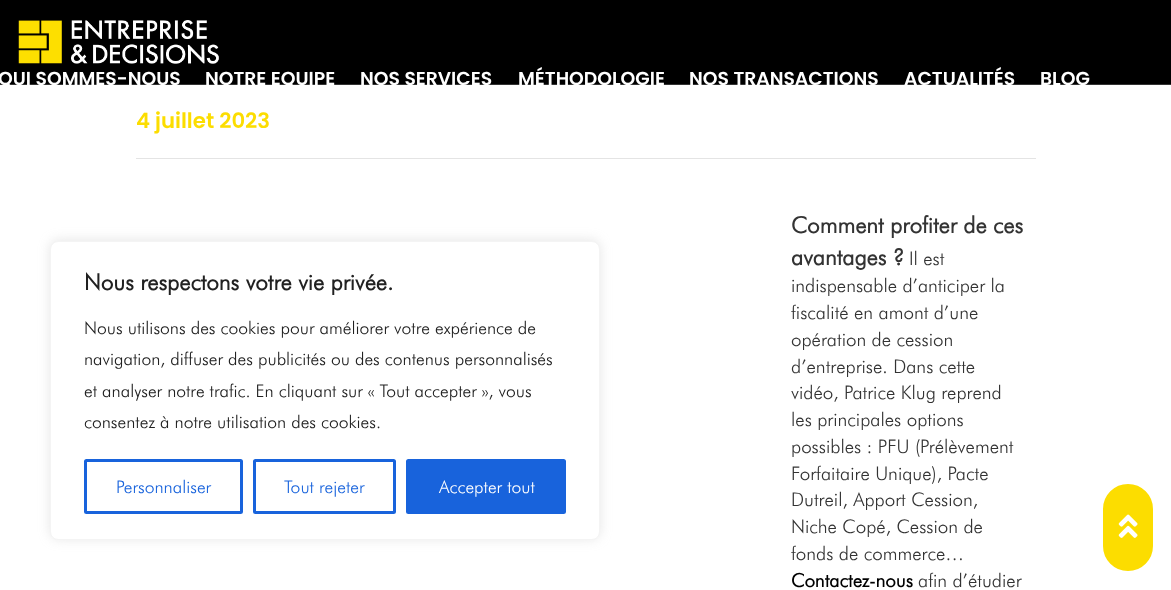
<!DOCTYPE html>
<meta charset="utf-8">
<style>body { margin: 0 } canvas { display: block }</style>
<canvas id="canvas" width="1171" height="590"></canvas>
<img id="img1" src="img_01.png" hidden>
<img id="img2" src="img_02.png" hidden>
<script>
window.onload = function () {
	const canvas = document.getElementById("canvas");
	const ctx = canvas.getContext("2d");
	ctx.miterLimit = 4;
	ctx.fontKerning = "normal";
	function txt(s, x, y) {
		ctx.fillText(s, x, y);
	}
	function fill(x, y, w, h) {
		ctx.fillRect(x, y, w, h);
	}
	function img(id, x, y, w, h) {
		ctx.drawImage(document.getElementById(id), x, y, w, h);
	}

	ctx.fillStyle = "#FFFFFF";
	fill(0, 0, 1171, 590);
	ctx.fillStyle = "#000000";
	fill(0, 0, 1171, 84);
	ctx.fillStyle = "#333333";
	fill(0, 84, 1171, 1);
	img("img1", 18, 20, 201, 44);
	ctx.fillStyle = "#E4E4E4";
	fill(136, 158, 900, 1);
	ctx.fillStyle = "rgba(172, 171, 171, 0.3)";
	ctx.filter = "blur(6px)";
	ctx.beginPath();
	ctx.roundRect(50, 240, 550, 299, 8);
	ctx.fill();
	ctx.filter = "none";
	ctx.fillStyle = "#FFFFFF";
	ctx.beginPath();
	ctx.roundRect(50.5, 241.5, 549, 298, 7.5);
	ctx.fill();
	ctx.strokeStyle = "#F4F4F4";
	ctx.stroke();
	ctx.beginPath();
	ctx.roundRect(85.5, 460.5, 156, 52, 1);
	ctx.strokeStyle = "#1863DC";
	ctx.lineWidth = 3;
	ctx.stroke();
	ctx.beginPath();
	ctx.roundRect(254.5, 460.5, 140, 52, 1);
	ctx.stroke();
	ctx.fillStyle = "#1863DC";
	ctx.beginPath();
	ctx.roundRect(407.5, 460.5, 157, 52, 1);
	ctx.fill();
	ctx.stroke();
	ctx.fillStyle = "#FCDD00";
	ctx.beginPath();
	ctx.roundRect(1104.5, 485.5, 47, 84, 23.5);
	ctx.fill();
	ctx.strokeStyle = "#FCDD00";
	ctx.stroke();
	img("img2", 1118, 514, 20, 24);
	ctx.font = "600 18.75px Poppins";
	ctx.fillStyle = "#FFFFFF";
	txt("QUI SOMMES-NOUS", -2, 85);
	txt("NOTRE EQUIPE", 205, 85);
	txt("NOS SERVICES", 360, 85);
	txt("MÉTHODOLOGIE", 518, 85);
	txt("NOS TRANSACTIONS", 689, 85);
	txt("ACTUALITÉS", 904, 85);
	txt("BLOG", 1040, 85);
	ctx.font = "600 21.25px Poppins";
	ctx.fillStyle = "#FCDD00";
	txt("4 juillet 2023", 136, 128);
	ctx.font = "bold 22.5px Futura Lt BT";
	ctx.fillStyle = "#333333";
	txt("Comment profiter de ces", 791, 233);
	txt("avantages ?", 791, 265);
	ctx.font = "300 18.75px Futura Lt BT";
	txt("Il est", 909, 265);
	txt("indispensable d’anticiper la", 791, 292);
	txt("fiscalité en amont d’une", 791, 319);
	txt("opération de cession", 791, 346);
	txt("d’entreprise. Dans cette", 791, 373);
	txt("vidéo, Patrice Klug reprend", 791, 399);
	txt("les principales options", 791, 426);
	txt("possibles : PFU (Prélèvement", 791, 453);
	txt("Forfaitaire Unique), Pacte", 791, 480);
	txt("Dutreil, Apport Cession,", 791, 506);
	txt("Niche Copé, Cession de", 791, 533);
	txt("fonds de commerce…", 791, 560);
	ctx.font = "bold 18.75px Futura Lt BT";
	ctx.fillStyle = "#000000";
	txt("Contactez-nous", 791, 587);
	ctx.font = "300 18.75px Futura Lt BT";
	ctx.fillStyle = "#333333";
	txt("afin d’étudier", 918, 587);
	ctx.font = "bold 22.5px Futura Lt BT";
	ctx.fillStyle = "#212121";
	txt("Nous respectons votre vie privée.", 84, 290);
	ctx.font = "300 17.5px Futura Lt BT";
	txt("Nous utilisons des cookies pour améliorer votre expérience de", 84, 334);
	txt("navigation, diffuser des publicités ou des contenus personnalisés", 84, 365);
	txt("et analyser notre trafic. En cliquant sur « Tout accepter », vous", 84, 397);
	txt("consentez à notre utilisation des cookies.", 84, 428);
	ctx.fillStyle = "#1863DC";
	txt("Personnaliser", 116, 493);
	txt("Tout rejeter", 284, 493);
	ctx.fillStyle = "#FFFFFF";
	txt("Accepter tout", 439, 493);
};
</script>
